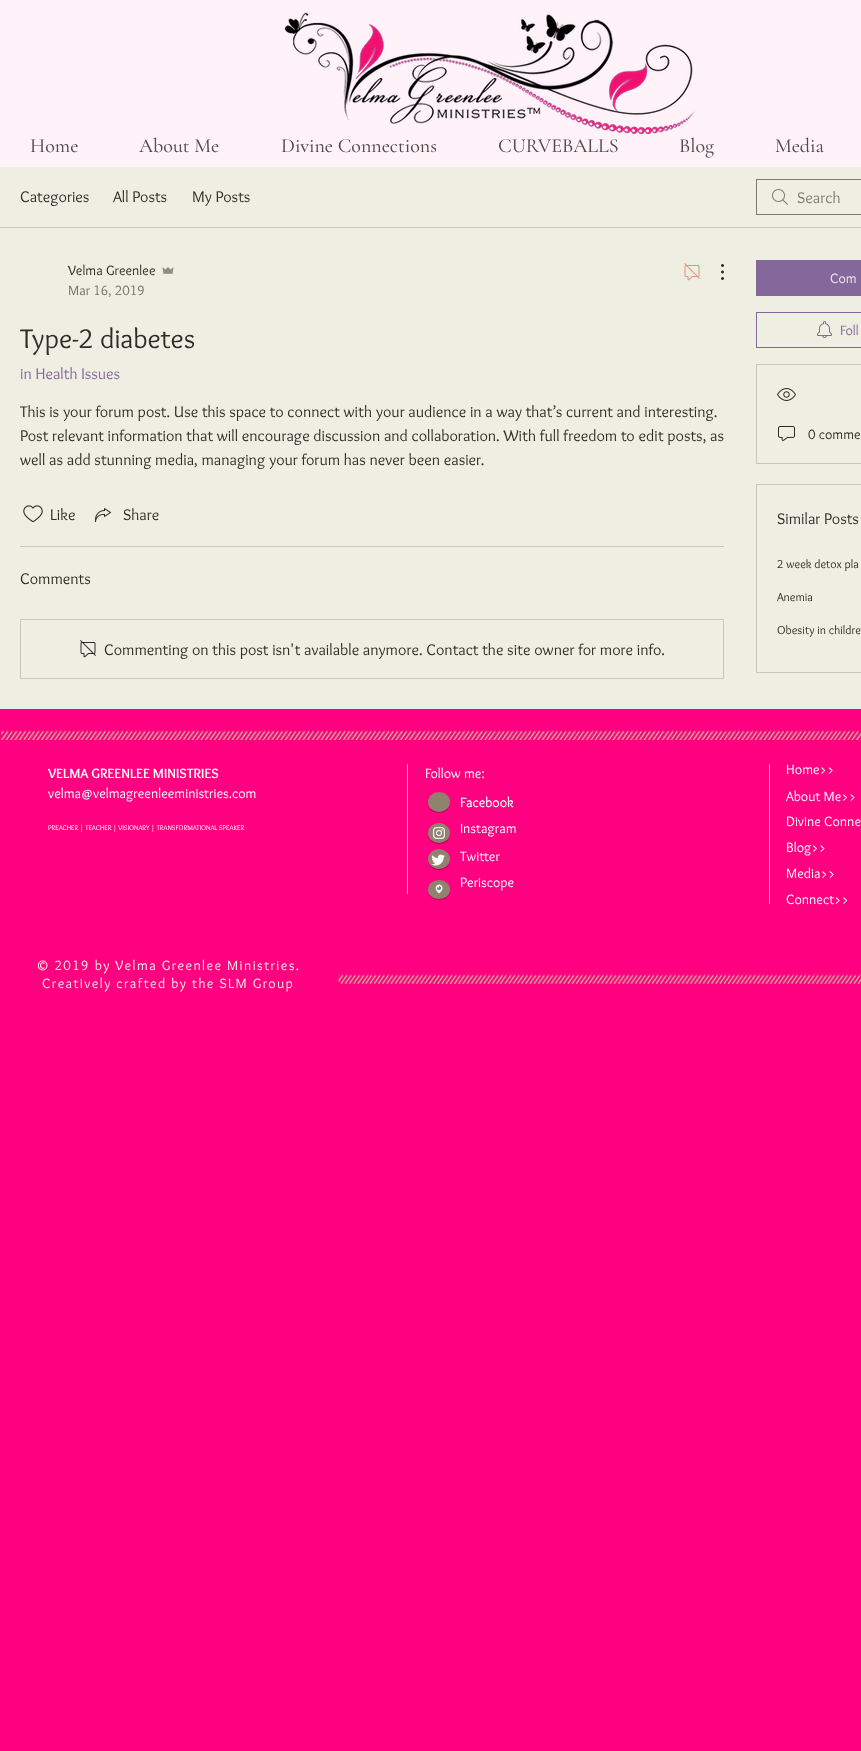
<!DOCTYPE html>
<meta charset="utf-8">
<style>body { margin: 0 } canvas { display: block }</style>
<canvas id="canvas" width="861" height="1751"></canvas>
<img id="img1" src="img_01.png" hidden>
<img id="img2" src="img_02.png" hidden>
<img id="img3" src="img_03.png" hidden>
<img id="img4" src="img_04.png" hidden>
<img id="img5" src="img_05.png" hidden>
<img id="img6" src="img_06.png" hidden>
<img id="img7" src="img_07.png" hidden>
<img id="img8" src="img_08.png" hidden>
<img id="img9" src="img_09.png" hidden>
<img id="img10" src="img_10.png" hidden>
<img id="img11" src="img_11.png" hidden>
<img id="img12" src="img_12.png" hidden>
<img id="img13" src="img_13.png" hidden>
<img id="img14" src="img_14.png" hidden>
<img id="img15" src="img_15.png" hidden>
<img id="img16" src="img_16.png" hidden>
<script>
window.onload = function () {
	const canvas = document.getElementById("canvas");
	const ctx = canvas.getContext("2d");
	ctx.miterLimit = 4;
	ctx.fontKerning = "normal";
	function txt(s, x, y) {
		ctx.fillText(s, x, y);
	}
	function fill(x, y, w, h) {
		ctx.fillRect(x, y, w, h);
	}
	function img(id, x, y, w, h) {
		ctx.drawImage(document.getElementById(id), x, y, w, h);
	}

	ctx.fillStyle = "#FF0080";
	fill(0, 0, 861, 1751);
	ctx.fillStyle = "#FFF2F9";
	fill(0, 0, 861, 167);
	img("img1", 284, 12, 411, 122);
	ctx.fillStyle = "#EFEEE3";
	fill(0, 167, 861, 542);
	ctx.fillStyle = "#CDC3B6";
	fill(0, 227, 861, 1);
	img("img2", 772, 189, 16, 16);
	ctx.strokeStyle = "#7C7971";
	ctx.strokeRect(756.5, 179.5, 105, 35);
	img("img3", 162, 267, 12, 7);
	img("img4", 684, 263, 16, 18);
	img("img5", 721, 264, 3, 16);
	img("img6", 23, 505, 20, 18);
	img("img7", 95, 508, 16, 14);
	ctx.fillStyle = "#C9C7BD";
	fill(20, 546, 704, 1);
	ctx.strokeStyle = "#C9C7BD";
	ctx.strokeRect(20.5, 619.5, 703, 59);
	img("img8", 80, 640, 16, 18);
	ctx.fillStyle = "#84679B";
	fill(756, 260, 105, 36);
	ctx.strokeStyle = "#84679B";
	ctx.strokeRect(756.5, 312.5, 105, 35);
	img("img9", 817, 321, 15, 17);
	ctx.strokeStyle = "#C9C7BD";
	ctx.strokeRect(756.5, 364.5, 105, 99);
	img("img10", 777, 388, 19, 13);
	img("img11", 778, 426, 17, 15);
	ctx.strokeRect(756.5, 484.5, 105, 188);
	img("img12", 1, 730, 860, 10);
	ctx.fillStyle = "#CCC0B0";
	fill(407, 764, 1, 130);
	fill(769, 764, 1, 140);
	ctx.fillStyle = "#B3005A";
	ctx.beginPath();
	ctx.moveTo(428, 802.5);
	ctx.bezierCurveTo(427.5, 816.5, 450.5, 816.5, 450, 802.5);
	ctx.bezierCurveTo(449.5, 815, 428.5, 815, 428, 802.5);
	ctx.closePath();
	ctx.fill();
	ctx.fillStyle = "#91826F";
	ctx.beginPath();
	ctx.ellipse(439, 802, 11, 10, 0, 0, Math.PI * 2);
	ctx.fill();
	ctx.fillStyle = "#B3005A";
	ctx.beginPath();
	ctx.moveTo(428, 833.5);
	ctx.bezierCurveTo(427.5, 847.5, 450.5, 847.5, 450, 833.5);
	ctx.bezierCurveTo(449.5, 846, 428.5, 846, 428, 833.5);
	ctx.closePath();
	ctx.fill();
	ctx.fillStyle = "#91826F";
	ctx.beginPath();
	ctx.ellipse(439, 833, 11, 10, 0, 0, Math.PI * 2);
	ctx.fill();
	img("img13", 432, 826, 13, 13);
	ctx.fillStyle = "#B3005A";
	ctx.beginPath();
	ctx.moveTo(428, 859.5);
	ctx.bezierCurveTo(427.5, 873.5, 450.5, 873.5, 450, 859.5);
	ctx.bezierCurveTo(449.5, 872, 428.5, 872, 428, 859.5);
	ctx.closePath();
	ctx.fill();
	ctx.fillStyle = "#91826F";
	ctx.beginPath();
	ctx.ellipse(439, 859, 11, 10, 0, 0, Math.PI * 2);
	ctx.fill();
	img("img14", 431, 854, 14, 12);
	ctx.fillStyle = "#B3005A";
	ctx.beginPath();
	ctx.moveTo(428, 890);
	ctx.bezierCurveTo(427, 903, 451, 903, 450, 890);
	ctx.bezierCurveTo(449.5, 902, 428.5, 902, 428, 890);
	ctx.closePath();
	ctx.fill();
	ctx.fillStyle = "#91826F";
	ctx.beginPath();
	ctx.ellipse(439, 889.5, 11, 9.5, 0, 0, Math.PI * 2);
	ctx.fill();
	img("img15", 435, 884, 8, 10);
	img("img16", 338, 974, 523, 10);
	ctx.font = "500 20px Cormorant Garamond";
	ctx.fillStyle = "#524B4B";
	txt("Home", 30, 152);
	txt("About Me", 139, 152);
	txt("Divine Connections", 281, 152);
	txt("CURVEBALLS", 498, 152);
	txt("Blog", 679, 152);
	txt("Media", 775, 152);
	ctx.font = "16px Overlock";
	ctx.fillStyle = "#302B25";
	txt("Categories", 20, 202);
	txt("All Posts", 113, 202);
	txt("My Posts", 192, 202);
	ctx.fillStyle = "#7C7971";
	txt("Search", 797, 203);
	ctx.font = "14px Overlock";
	ctx.fillStyle = "#302B25";
	txt("Velma Greenlee", 68, 275);
	ctx.fillStyle = "#757169";
	txt("Mar 16, 2019", 68, 295);
	ctx.font = "28px Overlock";
	ctx.fillStyle = "#302B25";
	txt("Type-2 diabetes", 20, 348);
	ctx.font = "16px Overlock";
	ctx.fillStyle = "#84679B";
	txt("in Health Issues", 20, 379);
	ctx.fillStyle = "#302B25";
	txt("This is your forum post. Use this space to connect with your audience in a way that’s current and interesting.", 20, 417);
	txt("Post relevant information that will encourage discussion and collaboration. With full freedom to edit posts, as", 20, 441);
	txt("well as add stunning media, managing your forum has never been easier.", 20, 465);
	txt("Like", 50, 520);
	txt("Share", 123, 520);
	txt("Comments", 20, 584);
	txt("Commenting on this post isn't available anymore. Contact the site owner for more info.", 104, 655);
	ctx.font = "14px Overlock";
	ctx.fillStyle = "#EFEEE3";
	txt("Com", 830, 283);
	ctx.fillStyle = "#84679B";
	txt("Foll", 840, 335);
	ctx.fillStyle = "#302B25";
	txt("0 comme", 808, 439);
	ctx.font = "16px Overlock";
	txt("Similar Posts", 777, 524);
	ctx.font = "12px Overlock";
	txt("2 week detox pla", 777, 568);
	txt("Anemia", 777, 601);
	txt("Obesity in childre", 777, 634);
	ctx.font = "bold 14px Overlock";
	ctx.fillStyle = "#FFFFFF";
	txt("VELMA GREENLEE MINISTRIES", 48, 778);
	ctx.font = "14px Overlock";
	txt("velma@velmagreenleeministries.com", 48, 798);
	ctx.font = "7px Overlock";
	txt("PREACHER | TEACHER | VISIONARY | TRANSFORMATIONAL SPEAKER", 48, 830);
	ctx.font = "14px Overlock";
	txt("Follow me:", 425, 778);
	txt("Home>>", 786, 774);
	txt("About Me>>", 786, 801);
	txt("Divine Conne", 786, 826);
	txt("Blog>>", 786, 852);
	txt("Media>>", 786, 878);
	txt("Connect>>", 786, 904);
	ctx.fillStyle = "#A992BD";
	txt("Facebook", 460, 807);
	ctx.fillStyle = "#FFFFFF";
	txt("Facebook", 460, 807);
	txt("Instagram", 460, 833);
	txt("Twitter", 460, 861);
	txt("Periscope", 460, 887);
	ctx.letterSpacing = "1.4px";
	ctx.fillStyle = "#EFEEE3";
	txt("© 2019 by Velma Greenlee Ministries.", 36, 970);
	txt("Creatively crafted by the SLM Group", 42, 988);
};
</script>
